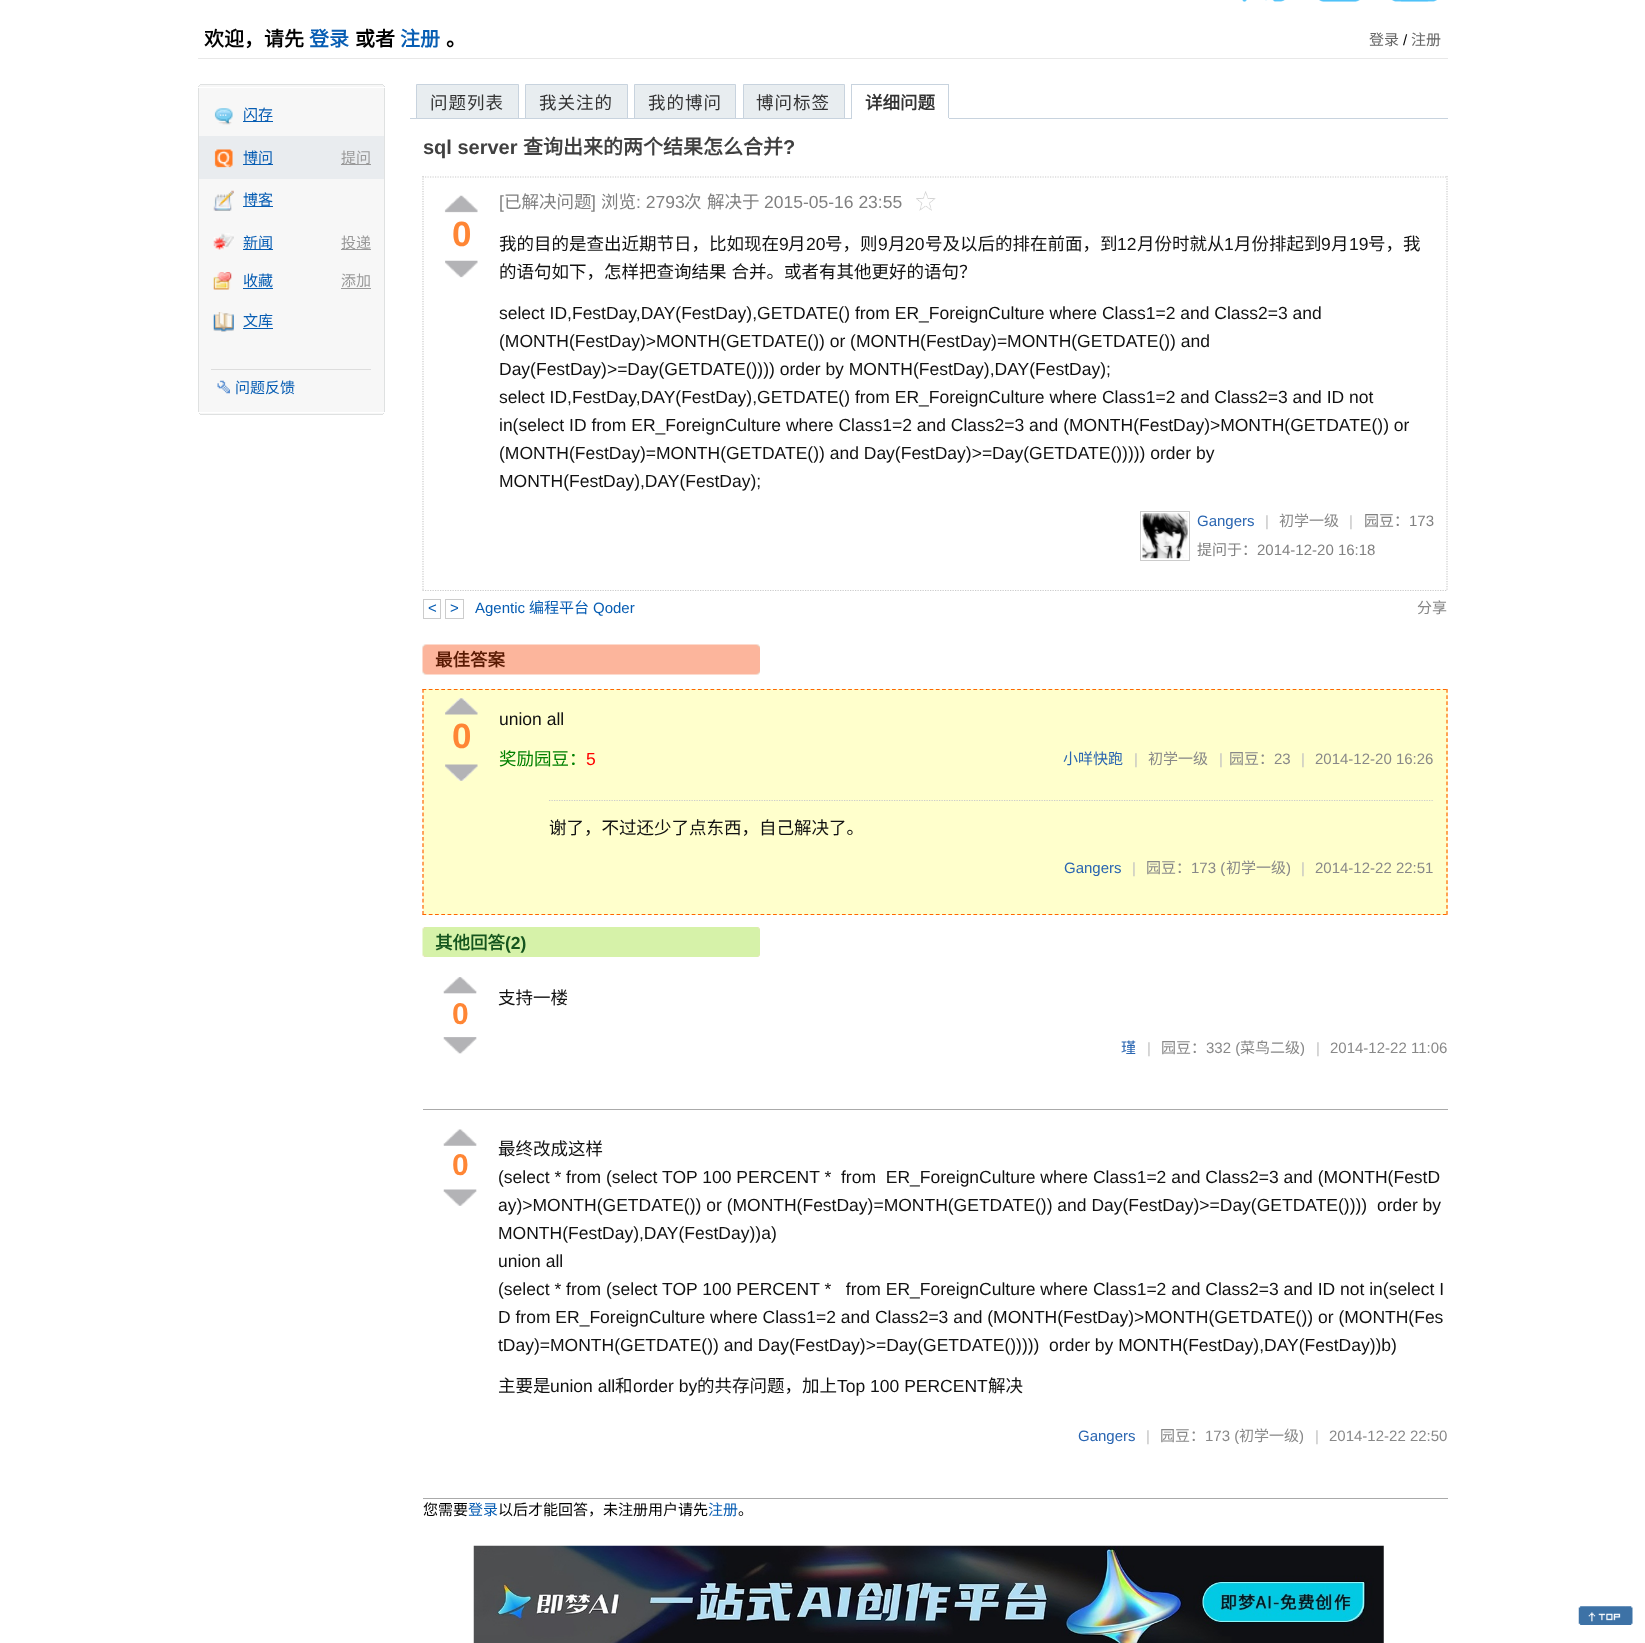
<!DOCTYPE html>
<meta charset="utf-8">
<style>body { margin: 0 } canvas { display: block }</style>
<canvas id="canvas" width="1645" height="1643"></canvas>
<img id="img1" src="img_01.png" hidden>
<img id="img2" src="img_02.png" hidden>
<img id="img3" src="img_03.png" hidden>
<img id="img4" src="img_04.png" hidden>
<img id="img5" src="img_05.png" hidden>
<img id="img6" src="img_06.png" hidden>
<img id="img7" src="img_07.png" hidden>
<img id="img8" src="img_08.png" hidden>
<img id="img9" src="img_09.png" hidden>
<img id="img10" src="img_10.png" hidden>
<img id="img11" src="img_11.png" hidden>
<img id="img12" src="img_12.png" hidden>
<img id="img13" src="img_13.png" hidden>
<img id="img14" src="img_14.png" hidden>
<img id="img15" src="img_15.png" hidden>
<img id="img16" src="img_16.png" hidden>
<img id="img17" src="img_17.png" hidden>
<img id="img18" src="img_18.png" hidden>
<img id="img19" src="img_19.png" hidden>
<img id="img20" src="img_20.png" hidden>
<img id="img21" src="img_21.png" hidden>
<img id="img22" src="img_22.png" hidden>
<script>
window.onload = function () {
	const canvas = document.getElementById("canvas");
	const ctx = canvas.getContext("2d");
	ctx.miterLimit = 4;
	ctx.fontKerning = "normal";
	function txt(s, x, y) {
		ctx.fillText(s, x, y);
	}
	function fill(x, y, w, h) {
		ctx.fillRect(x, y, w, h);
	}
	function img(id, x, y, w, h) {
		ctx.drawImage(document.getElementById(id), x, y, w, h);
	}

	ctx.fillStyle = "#FFFFFF";
	fill(0, 0, 1645, 1643);
	ctx.fillStyle = "#E8E8E8";
	fill(198, 58, 1250, 1);
	img("img1", 1242, 0, 195, 2);
	ctx.fillStyle = "#DFE1E1";
	fill(200, 84, 183, 1);
	ctx.fillStyle = "#F7F7F7";
	fill(199, 85, 185, 1);
	ctx.fillStyle = "#DFE1E1";
	fill(383, 85, 1, 1);
	fill(199, 85, 1, 1);
	ctx.fillStyle = "#F7F7F7";
	fill(198, 86, 187, 1);
	ctx.fillStyle = "#DBDEE2";
	fill(384, 86, 1, 1);
	ctx.fillStyle = "#DFE1E1";
	fill(198, 86, 1, 1);
	ctx.fillStyle = "#F7F7F7";
	fill(199, 88, 185, 323);
	ctx.fillStyle = "#DFE1E1";
	fill(384, 88, 1, 323);
	fill(198, 88, 1, 323);
	img("img2", 214, 108, 19, 17);
	ctx.fillStyle = "#075DB3";
	fill(243, 121, 30, 1);
	ctx.fillStyle = "#E9ECEF";
	fill(199, 136, 185, 43);
	img("img3", 214, 149, 19, 19);
	ctx.fillStyle = "#075DB3";
	fill(243, 164, 30, 1);
	ctx.fillStyle = "#999999";
	fill(341, 164, 30, 1);
	img("img4", 213, 190, 21, 21);
	ctx.fillStyle = "#075DB3";
	fill(243, 206, 30, 1);
	img("img5", 213, 233, 21, 17);
	fill(243, 249, 30, 1);
	ctx.fillStyle = "#999999";
	fill(341, 249, 30, 1);
	img("img6", 213, 272, 19, 18);
	ctx.fillStyle = "#075DB3";
	fill(243, 288, 30, 1);
	ctx.fillStyle = "#999999";
	fill(341, 288, 30, 1);
	img("img7", 213, 312, 21, 20);
	ctx.fillStyle = "#075DB3";
	fill(243, 328, 30, 1);
	ctx.fillStyle = "#DDDDDD";
	fill(211, 369, 160, 1);
	img("img8", 217, 380, 13, 14);
	ctx.fillStyle = "#F7F7F7";
	fill(198, 411, 187, 1);
	ctx.fillStyle = "#DBDEE2";
	fill(384, 411, 1, 1);
	ctx.fillStyle = "#DFE1E1";
	fill(198, 411, 1, 1);
	ctx.fillStyle = "#F7F7F7";
	fill(199, 413, 185, 1);
	ctx.fillStyle = "#DFE1E1";
	fill(383, 413, 1, 1);
	fill(199, 413, 1, 1);
	fill(200, 414, 183, 1);
	ctx.fillStyle = "#C8D3DE";
	fill(410, 118, 1038, 1);
	ctx.fillStyle = "#E8EDF0";
	ctx.beginPath();
	ctx.rect(416.5, 84.5, 102, 34);
	ctx.fill();
	ctx.strokeStyle = "#C8D3DE";
	ctx.stroke();
	ctx.beginPath();
	ctx.rect(525.5, 84.5, 102, 34);
	ctx.fill();
	ctx.stroke();
	ctx.beginPath();
	ctx.rect(634.5, 84.5, 101, 34);
	ctx.fill();
	ctx.stroke();
	ctx.beginPath();
	ctx.rect(743.5, 84.5, 101, 34);
	ctx.fill();
	ctx.stroke();
	ctx.fillStyle = "#C8D3DE";
	fill(851, 84, 98, 1);
	fill(948, 84, 1, 35);
	ctx.fillStyle = "#FFFFFF";
	fill(851, 118, 98, 1);
	ctx.fillStyle = "#C8D3DE";
	fill(851, 84, 1, 35);
	ctx.beginPath();
	ctx.moveTo(422.5, 177);
	ctx.lineTo(1447.5, 177);
	ctx.strokeStyle = "#CCCCCC";
	ctx.lineWidth = 1.2;
	ctx.setLineDash([1.25, 1.25]);
	ctx.stroke();
	ctx.beginPath();
	ctx.moveTo(1447, 176);
	ctx.lineTo(1447, 591);
	ctx.stroke();
	ctx.beginPath();
	ctx.moveTo(422.5, 590.5);
	ctx.lineTo(1447.5, 590.5);
	ctx.stroke();
	ctx.beginPath();
	ctx.moveTo(423, 176);
	ctx.lineTo(423, 591);
	ctx.stroke();
	img("img9", 444, 195, 34, 18);
	img("img10", 445, 260, 33, 18);
	img("img11", 916, 191, 20, 20);
	ctx.lineWidth = 1;
	ctx.setLineDash([]);
	ctx.strokeRect(1140.5, 511.5, 49, 49);
	img("img12", 1142, 513, 46, 46);
	ctx.strokeRect(423.5, 599.5, 17, 19);
	ctx.strokeRect(445.5, 599.5, 18, 19);
	img("img13", 422, 644, 338, 31);
	ctx.fillStyle = "#FFFFCC";
	fill(423, 689, 1025, 226);
	ctx.beginPath();
	ctx.moveTo(422.5, 689.5);
	ctx.lineTo(1447.5, 689.5);
	ctx.strokeStyle = "#FF6600";
	ctx.lineWidth = 1.2;
	ctx.setLineDash([3.75, 2.51]);
	ctx.stroke();
	ctx.beginPath();
	ctx.moveTo(1447, 689);
	ctx.lineTo(1447, 915);
	ctx.setLineDash([3.75, 2.42]);
	ctx.stroke();
	ctx.beginPath();
	ctx.moveTo(422.5, 914.5);
	ctx.lineTo(1447.5, 914.5);
	ctx.setLineDash([3.75, 2.51]);
	ctx.stroke();
	ctx.beginPath();
	ctx.moveTo(423, 689);
	ctx.lineTo(423, 915);
	ctx.setLineDash([3.75, 2.42]);
	ctx.stroke();
	img("img14", 445, 698, 33, 17);
	img("img15", 445, 764, 33, 17);
	ctx.beginPath();
	ctx.moveTo(549, 800.5);
	ctx.lineTo(1434, 800.5);
	ctx.strokeStyle = "#CCCCCC";
	ctx.setLineDash([1.25, 1.25]);
	ctx.stroke();
	img("img16", 422, 927, 338, 30);
	ctx.fillStyle = "#AAAAAA";
	fill(423, 1109, 1025, 1);
	img("img17", 443, 977, 34, 17);
	img("img18", 443, 1037, 34, 17);
	fill(423, 1498, 1025, 1);
	img("img19", 443, 1129, 34, 17);
	img("img20", 443, 1189, 34, 17);
	img("img21", 473, 1545, 911, 98);
	img("img22", 1578, 1606, 55, 19);
	ctx.font = "bold 20px Noto Sans CJK SC";
	ctx.fillStyle = "#000000";
	txt("欢迎，请先", 204, 46);
	ctx.fillStyle = "#075DB3";
	txt("登录", 309, 46);
	ctx.fillStyle = "#000000";
	txt("或者", 355, 46);
	ctx.fillStyle = "#075DB3";
	txt("注册", 400, 46);
	ctx.fillStyle = "#000000";
	txt("。", 446, 46);
	ctx.font = "15px Noto Sans CJK SC";
	ctx.fillStyle = "#666666";
	txt("登录", 1369, 45);
	ctx.font = "15px Liberation Sans";
	ctx.fillStyle = "#000000";
	txt("/", 1403, 45);
	ctx.font = "15px Noto Sans CJK SC";
	ctx.fillStyle = "#666666";
	txt("注册", 1411, 45);
	ctx.fillStyle = "#075DB3";
	txt("闪存", 243, 120);
	txt("博问", 243, 163);
	ctx.fillStyle = "#999999";
	txt("提问", 341, 163);
	ctx.fillStyle = "#075DB3";
	txt("博客", 243, 205);
	txt("新闻", 243, 248);
	ctx.fillStyle = "#999999";
	txt("投递", 341, 248);
	ctx.fillStyle = "#075DB3";
	txt("收藏", 243, 286);
	ctx.fillStyle = "#999999";
	txt("添加", 341, 286);
	ctx.fillStyle = "#075DB3";
	txt("文库", 243, 326);
	txt("问题反馈", 235, 393);
	ctx.letterSpacing = "1px";
	ctx.font = "17.5px Noto Sans CJK SC";
	ctx.fillStyle = "#333333";
	txt("问题列表", 430, 109);
	txt("我关注的", 539, 109);
	txt("我的博问", 648, 109);
	txt("博问标签", 756, 109);
	ctx.letterSpacing = "0px";
	ctx.font = "bold 17.5px Noto Sans CJK SC";
	txt("详细问题", 865, 109);
	ctx.font = "bold 20px Liberation Sans";
	ctx.fillStyle = "#404040";
	txt("sql server", 423, 154);
	ctx.font = "bold 20px Noto Sans CJK SC";
	txt("查询出来的两个结果怎么合并", 523, 154);
	ctx.font = "bold 20px Liberation Sans";
	txt("?", 783, 154);
	ctx.font = "bold 35px Liberation Sans";
	ctx.fillStyle = "#FF8635";
	txt("0", 452, 246);
	ctx.font = "17.5px Liberation Sans";
	ctx.fillStyle = "#808080";
	txt("[", 499, 208);
	ctx.font = "17.5px Noto Sans CJK SC";
	txt("已解决问题", 504, 208);
	ctx.font = "17.5px Liberation Sans";
	txt("]", 591, 208);
	ctx.font = "17.5px Noto Sans CJK SC";
	txt("浏览", 601, 208);
	ctx.font = "17.5px Liberation Sans";
	txt(": 2793", 636, 208);
	ctx.font = "17.5px Noto Sans CJK SC";
	txt("次", 684, 208);
	txt("解决于", 707, 208);
	ctx.font = "17.5px Liberation Sans";
	txt("2015-05-16 23:55", 764, 208);
	ctx.font = "17.5px Noto Sans CJK SC";
	ctx.fillStyle = "#111111";
	txt("我的目的是查出近期节日，比如现在", 499, 250);
	ctx.font = "17.5px Liberation Sans";
	txt("9", 779, 250);
	ctx.font = "17.5px Noto Sans CJK SC";
	txt("月", 788, 250);
	ctx.font = "17.5px Liberation Sans";
	txt("20", 806, 250);
	ctx.font = "17.5px Noto Sans CJK SC";
	txt("号，则", 825, 250);
	ctx.font = "17.5px Liberation Sans";
	txt("9", 878, 250);
	ctx.font = "17.5px Noto Sans CJK SC";
	txt("月", 888, 250);
	ctx.font = "17.5px Liberation Sans";
	txt("20", 905, 250);
	ctx.font = "17.5px Noto Sans CJK SC";
	txt("号及以后的排在前面，到", 925, 250);
	ctx.font = "17.5px Liberation Sans";
	txt("12", 1117, 250);
	ctx.font = "17.5px Noto Sans CJK SC";
	txt("月份时就从", 1137, 250);
	ctx.font = "17.5px Liberation Sans";
	txt("1", 1224, 250);
	ctx.font = "17.5px Noto Sans CJK SC";
	txt("月份排起到", 1234, 250);
	ctx.font = "17.5px Liberation Sans";
	txt("9", 1321, 250);
	ctx.font = "17.5px Noto Sans CJK SC";
	txt("月", 1331, 250);
	ctx.font = "17.5px Liberation Sans";
	txt("19", 1349, 250);
	ctx.font = "17.5px Noto Sans CJK SC";
	txt("号，我", 1368, 250);
	ctx.wordSpacing = "1px";
	txt("的语句如下，怎样把查询结果 合并。或者有其他更好的语句？", 499, 278);
	ctx.wordSpacing = "0px";
	ctx.font = "17.5px Liberation Sans";
	txt("select ID,FestDay,DAY(FestDay),GETDATE() from ER_ForeignCulture where Class1=2 and Class2=3 and", 499, 319);
	txt("(MONTH(FestDay)>MONTH(GETDATE()) or (MONTH(FestDay)=MONTH(GETDATE()) and", 499, 347);
	txt("Day(FestDay)>=Day(GETDATE()))) order by MONTH(FestDay),DAY(FestDay);", 499, 375);
	txt("select ID,FestDay,DAY(FestDay),GETDATE() from ER_ForeignCulture where Class1=2 and Class2=3 and ID not", 499, 403);
	txt("in(select ID from ER_ForeignCulture where Class1=2 and Class2=3 and (MONTH(FestDay)>MONTH(GETDATE()) or", 499, 431);
	txt("(MONTH(FestDay)=MONTH(GETDATE()) and Day(FestDay)>=Day(GETDATE())))) order by", 499, 459);
	txt("MONTH(FestDay),DAY(FestDay);", 499, 487);
	ctx.font = "15px Liberation Sans";
	ctx.fillStyle = "#2965B1";
	txt("Gangers", 1197, 526);
	ctx.fillStyle = "#C1C1C1";
	txt("|", 1265, 526);
	ctx.font = "15px Noto Sans CJK SC";
	ctx.fillStyle = "#888888";
	txt("初学一级", 1279, 526);
	ctx.font = "15px Liberation Sans";
	ctx.fillStyle = "#C1C1C1";
	txt("|", 1349, 526);
	ctx.font = "15px Noto Sans CJK SC";
	ctx.fillStyle = "#808080";
	txt("园豆：", 1364, 526);
	ctx.font = "15px Liberation Sans";
	txt("173", 1409, 526);
	ctx.font = "15px Noto Sans CJK SC";
	txt("提问于：", 1197, 555);
	ctx.font = "15px Liberation Sans";
	txt("2014-12-20 16:18", 1257, 555);
	ctx.fillStyle = "#075DB3";
	txt("<", 428, 613);
	txt(">", 450, 613);
	txt("Agentic", 475, 613);
	ctx.font = "15px Noto Sans CJK SC";
	txt("编程平台", 529, 613);
	ctx.font = "15px Liberation Sans";
	txt("Qoder", 593, 613);
	ctx.font = "15px Noto Sans CJK SC";
	ctx.fillStyle = "#888888";
	txt("分享", 1417, 613);
	ctx.font = "bold 17.5px Noto Sans CJK SC";
	ctx.fillStyle = "#5A1A03";
	txt("最佳答案", 435, 666);
	ctx.font = "bold 35px Liberation Sans";
	ctx.fillStyle = "#FF8635";
	txt("0", 452, 748);
	ctx.font = "17.5px Liberation Sans";
	ctx.fillStyle = "#111111";
	txt("union all", 499, 725);
	ctx.font = "17.5px Noto Sans CJK SC";
	ctx.fillStyle = "#008000";
	txt("奖励园豆：", 499, 765);
	ctx.font = "17.5px Liberation Sans";
	ctx.fillStyle = "#FF0000";
	txt("5", 586, 765);
	ctx.font = "15px Noto Sans CJK SC";
	ctx.fillStyle = "#2965B1";
	txt("小咩快跑", 1063, 764);
	ctx.font = "15px Liberation Sans";
	ctx.fillStyle = "#C1C1C1";
	txt("|", 1134, 764);
	ctx.font = "15px Noto Sans CJK SC";
	ctx.fillStyle = "#888888";
	txt("初学一级", 1148, 764);
	ctx.font = "15px Liberation Sans";
	ctx.fillStyle = "#C1C1C1";
	txt("|", 1219, 764);
	ctx.font = "15px Noto Sans CJK SC";
	ctx.fillStyle = "#888888";
	txt("园豆：", 1229, 764);
	ctx.font = "15px Liberation Sans";
	txt("23", 1274, 764);
	ctx.fillStyle = "#C1C1C1";
	txt("|", 1301, 764);
	ctx.fillStyle = "#888888";
	txt("2014-12-20 16:26", 1315, 764);
	ctx.font = "17.5px Noto Sans CJK SC";
	ctx.fillStyle = "#111111";
	txt("谢了，不过还少了点东西，自己解决了。", 549, 834);
	ctx.font = "15px Liberation Sans";
	ctx.fillStyle = "#2965B1";
	txt("Gangers", 1064, 873);
	ctx.fillStyle = "#C1C1C1";
	txt("|", 1132, 873);
	ctx.font = "15px Noto Sans CJK SC";
	ctx.fillStyle = "#888888";
	txt("园豆：", 1146, 873);
	ctx.font = "15px Liberation Sans";
	txt("173 (", 1191, 873);
	ctx.font = "15px Noto Sans CJK SC";
	txt("初学一级", 1226, 873);
	ctx.font = "15px Liberation Sans";
	txt(")", 1286, 873);
	ctx.fillStyle = "#C1C1C1";
	txt("|", 1301, 873);
	ctx.fillStyle = "#888888";
	txt("2014-12-22 22:51", 1315, 873);
	ctx.font = "bold 17.5px Noto Sans CJK SC";
	ctx.fillStyle = "#15551E";
	txt("其他回答", 435, 949);
	ctx.font = "bold 17.5px Liberation Sans";
	txt("(2)", 505, 949);
	ctx.font = "bold 30px Liberation Sans";
	ctx.fillStyle = "#FF8635";
	txt("0", 452, 1024);
	ctx.font = "17.5px Noto Sans CJK SC";
	ctx.fillStyle = "#111111";
	txt("支持一楼", 498, 1004);
	ctx.font = "15px Noto Sans CJK SC";
	ctx.fillStyle = "#2965B1";
	txt("瑾", 1121, 1053);
	ctx.font = "15px Liberation Sans";
	ctx.fillStyle = "#C1C1C1";
	txt("|", 1147, 1053);
	ctx.font = "15px Noto Sans CJK SC";
	ctx.fillStyle = "#888888";
	txt("园豆：", 1161, 1053);
	ctx.font = "15px Liberation Sans";
	txt("332 (", 1206, 1053);
	ctx.font = "15px Noto Sans CJK SC";
	txt("菜鸟二级", 1240, 1053);
	ctx.font = "15px Liberation Sans";
	txt(")", 1300, 1053);
	ctx.fillStyle = "#C1C1C1";
	txt("|", 1316, 1053);
	ctx.fillStyle = "#888888";
	txt("2014-12-22 11:06", 1330, 1053);
	ctx.font = "bold 30px Liberation Sans";
	ctx.fillStyle = "#FF8635";
	txt("0", 452, 1175);
	ctx.font = "17.5px Noto Sans CJK SC";
	ctx.fillStyle = "#111111";
	txt("最终改成这样", 498, 1155);
	ctx.font = "17.5px Liberation Sans";
	txt("(select * from (select TOP 100 PERCENT *  from  ER_ForeignCulture where Class1=2 and Class2=3 and (MONTH(FestD", 498, 1183);
	txt("ay)>MONTH(GETDATE()) or (MONTH(FestDay)=MONTH(GETDATE()) and Day(FestDay)>=Day(GETDATE())))  order by", 498, 1211);
	txt("MONTH(FestDay),DAY(FestDay))a)", 498, 1239);
	txt("union all", 498, 1267);
	txt("(select * from (select TOP 100 PERCENT *   from ER_ForeignCulture where Class1=2 and Class2=3 and ID not in(select I", 498, 1295);
	txt("D from ER_ForeignCulture where Class1=2 and Class2=3 and (MONTH(FestDay)>MONTH(GETDATE()) or (MONTH(Fes", 498, 1323);
	txt("tDay)=MONTH(GETDATE()) and Day(FestDay)>=Day(GETDATE()))))  order by MONTH(FestDay),DAY(FestDay))b)", 498, 1351);
	ctx.font = "17.5px Noto Sans CJK SC";
	txt("主要是", 498, 1392);
	ctx.font = "17.5px Liberation Sans";
	txt("union all", 550, 1392);
	ctx.font = "17.5px Noto Sans CJK SC";
	txt("和", 615, 1392);
	ctx.font = "17.5px Liberation Sans";
	txt("order by", 633, 1392);
	ctx.font = "17.5px Noto Sans CJK SC";
	txt("的共存问题，加上", 697, 1392);
	ctx.font = "17.5px Liberation Sans";
	txt("Top 100 PERCENT", 837, 1392);
	ctx.font = "17.5px Noto Sans CJK SC";
	txt("解决", 988, 1392);
	ctx.font = "15px Liberation Sans";
	ctx.fillStyle = "#2965B1";
	txt("Gangers", 1078, 1441);
	ctx.fillStyle = "#C1C1C1";
	txt("|", 1146, 1441);
	ctx.font = "15px Noto Sans CJK SC";
	ctx.fillStyle = "#888888";
	txt("园豆：", 1160, 1441);
	ctx.font = "15px Liberation Sans";
	txt("173 (", 1205, 1441);
	ctx.font = "15px Noto Sans CJK SC";
	txt("初学一级", 1239, 1441);
	ctx.font = "15px Liberation Sans";
	txt(")", 1299, 1441);
	ctx.fillStyle = "#C1C1C1";
	txt("|", 1315, 1441);
	ctx.fillStyle = "#888888";
	txt("2014-12-22 22:50", 1329, 1441);
	ctx.font = "15px Noto Sans CJK SC";
	ctx.fillStyle = "#000000";
	txt("您需要", 423, 1515);
	ctx.fillStyle = "#075DB3";
	txt("登录", 468, 1515);
	ctx.fillStyle = "#000000";
	txt("以后才能回答，未注册用户请先", 498, 1515);
	ctx.fillStyle = "#075DB3";
	txt("注册", 708, 1515);
	ctx.fillStyle = "#000000";
	txt("。", 738, 1515);
};
</script>
